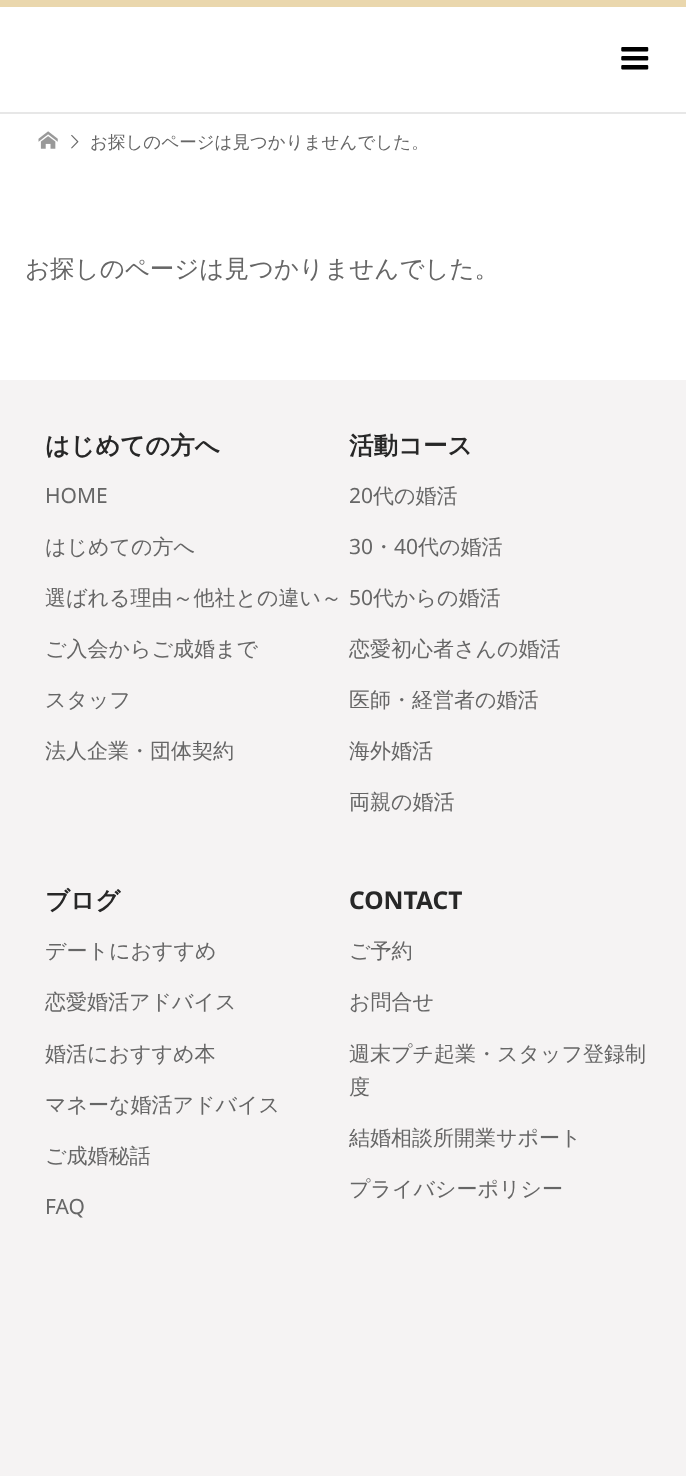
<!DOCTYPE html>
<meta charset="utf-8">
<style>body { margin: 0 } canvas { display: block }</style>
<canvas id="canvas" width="686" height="1476"></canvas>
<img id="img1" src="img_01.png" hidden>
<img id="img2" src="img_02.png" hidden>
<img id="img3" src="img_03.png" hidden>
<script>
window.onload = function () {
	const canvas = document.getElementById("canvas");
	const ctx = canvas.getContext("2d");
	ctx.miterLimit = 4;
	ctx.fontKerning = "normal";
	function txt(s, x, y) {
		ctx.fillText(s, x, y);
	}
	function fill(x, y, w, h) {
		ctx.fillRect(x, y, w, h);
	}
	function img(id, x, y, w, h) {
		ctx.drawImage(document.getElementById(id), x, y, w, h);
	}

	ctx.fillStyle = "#FFFFFF";
	fill(0, 0, 686, 1476);
	ctx.fillStyle = "#EAD7AD";
	fill(0, 0, 686, 7);
	img("img1", 621, 47, 28, 23);
	ctx.fillStyle = "#E7E7E7";
	fill(0, 112, 686, 2);
	img("img2", 38, 131, 20, 18);
	img("img3", 71, 134, 8, 15);
	ctx.fillStyle = "#F5F3F3";
	fill(0, 380, 686, 1096);
	ctx.font = "500 17.5px WenQuanYi Zen Hei";
	ctx.fillStyle = "#666666";
	txt("お探しのページは見つかりませんでした。", 90, 148);
	ctx.font = "500 24.5px WenQuanYi Zen Hei";
	txt("お探しのページは見つかりませんでした。", 25, 277);
	ctx.font = "bold 24.5px WenQuanYi Zen Hei";
	ctx.fillStyle = "#272727";
	txt("はじめての方へ", 45, 454);
	ctx.font = "21px Noto Sans";
	ctx.fillStyle = "#666666";
	txt("HOME", 45, 503);
	ctx.font = "500 21px WenQuanYi Zen Hei";
	txt("はじめての方へ", 45, 554);
	txt("選ばれる理由～他社との違い～", 45, 605);
	txt("ご入会からご成婚まで", 45, 656);
	txt("スタッフ", 45, 707);
	txt("法人企業・団体契約", 45, 758);
	ctx.font = "bold 24.5px WenQuanYi Zen Hei";
	ctx.fillStyle = "#272727";
	txt("活動コース", 349, 454);
	ctx.font = "21px Noto Sans";
	ctx.fillStyle = "#666666";
	txt("20", 349, 503);
	ctx.font = "500 21px WenQuanYi Zen Hei";
	txt("代の婚活", 373, 503);
	ctx.font = "21px Noto Sans";
	txt("30", 349, 554);
	ctx.font = "500 21px WenQuanYi Zen Hei";
	txt("・", 373, 554);
	ctx.font = "21px Noto Sans";
	txt("40", 394, 554);
	ctx.font = "500 21px WenQuanYi Zen Hei";
	txt("代の婚活", 418, 554);
	ctx.font = "21px Noto Sans";
	txt("50", 349, 605);
	ctx.font = "500 21px WenQuanYi Zen Hei";
	txt("代からの婚活", 373, 605);
	txt("恋愛初心者さんの婚活", 349, 656);
	txt("医師・経営者の婚活", 349, 707);
	txt("海外婚活", 349, 758);
	txt("両親の婚活", 349, 809);
	ctx.font = "bold 24.5px WenQuanYi Zen Hei";
	ctx.fillStyle = "#272727";
	txt("ブログ", 45, 909);
	ctx.font = "500 21px WenQuanYi Zen Hei";
	ctx.fillStyle = "#666666";
	txt("デートにおすすめ", 45, 958);
	txt("恋愛婚活アドバイス", 45, 1009);
	txt("婚活におすすめ本", 45, 1061);
	txt("マネーな婚活アドバイス", 45, 1112);
	txt("ご成婚秘話", 45, 1163);
	ctx.font = "21px Noto Sans";
	txt("FAQ", 45, 1214);
	ctx.font = "bold 24.5px Noto Sans";
	ctx.fillStyle = "#272727";
	txt("CONTACT", 349, 909);
	ctx.font = "500 21px WenQuanYi Zen Hei";
	ctx.fillStyle = "#666666";
	txt("ご予約", 349, 958);
	txt("お問合せ", 349, 1009);
	txt("週末プチ起業・スタッフ登録制", 349, 1061);
	txt("度", 349, 1094);
	txt("結婚相談所開業サポート", 349, 1145);
	txt("プライバシーポリシー", 349, 1196);
};
</script>
